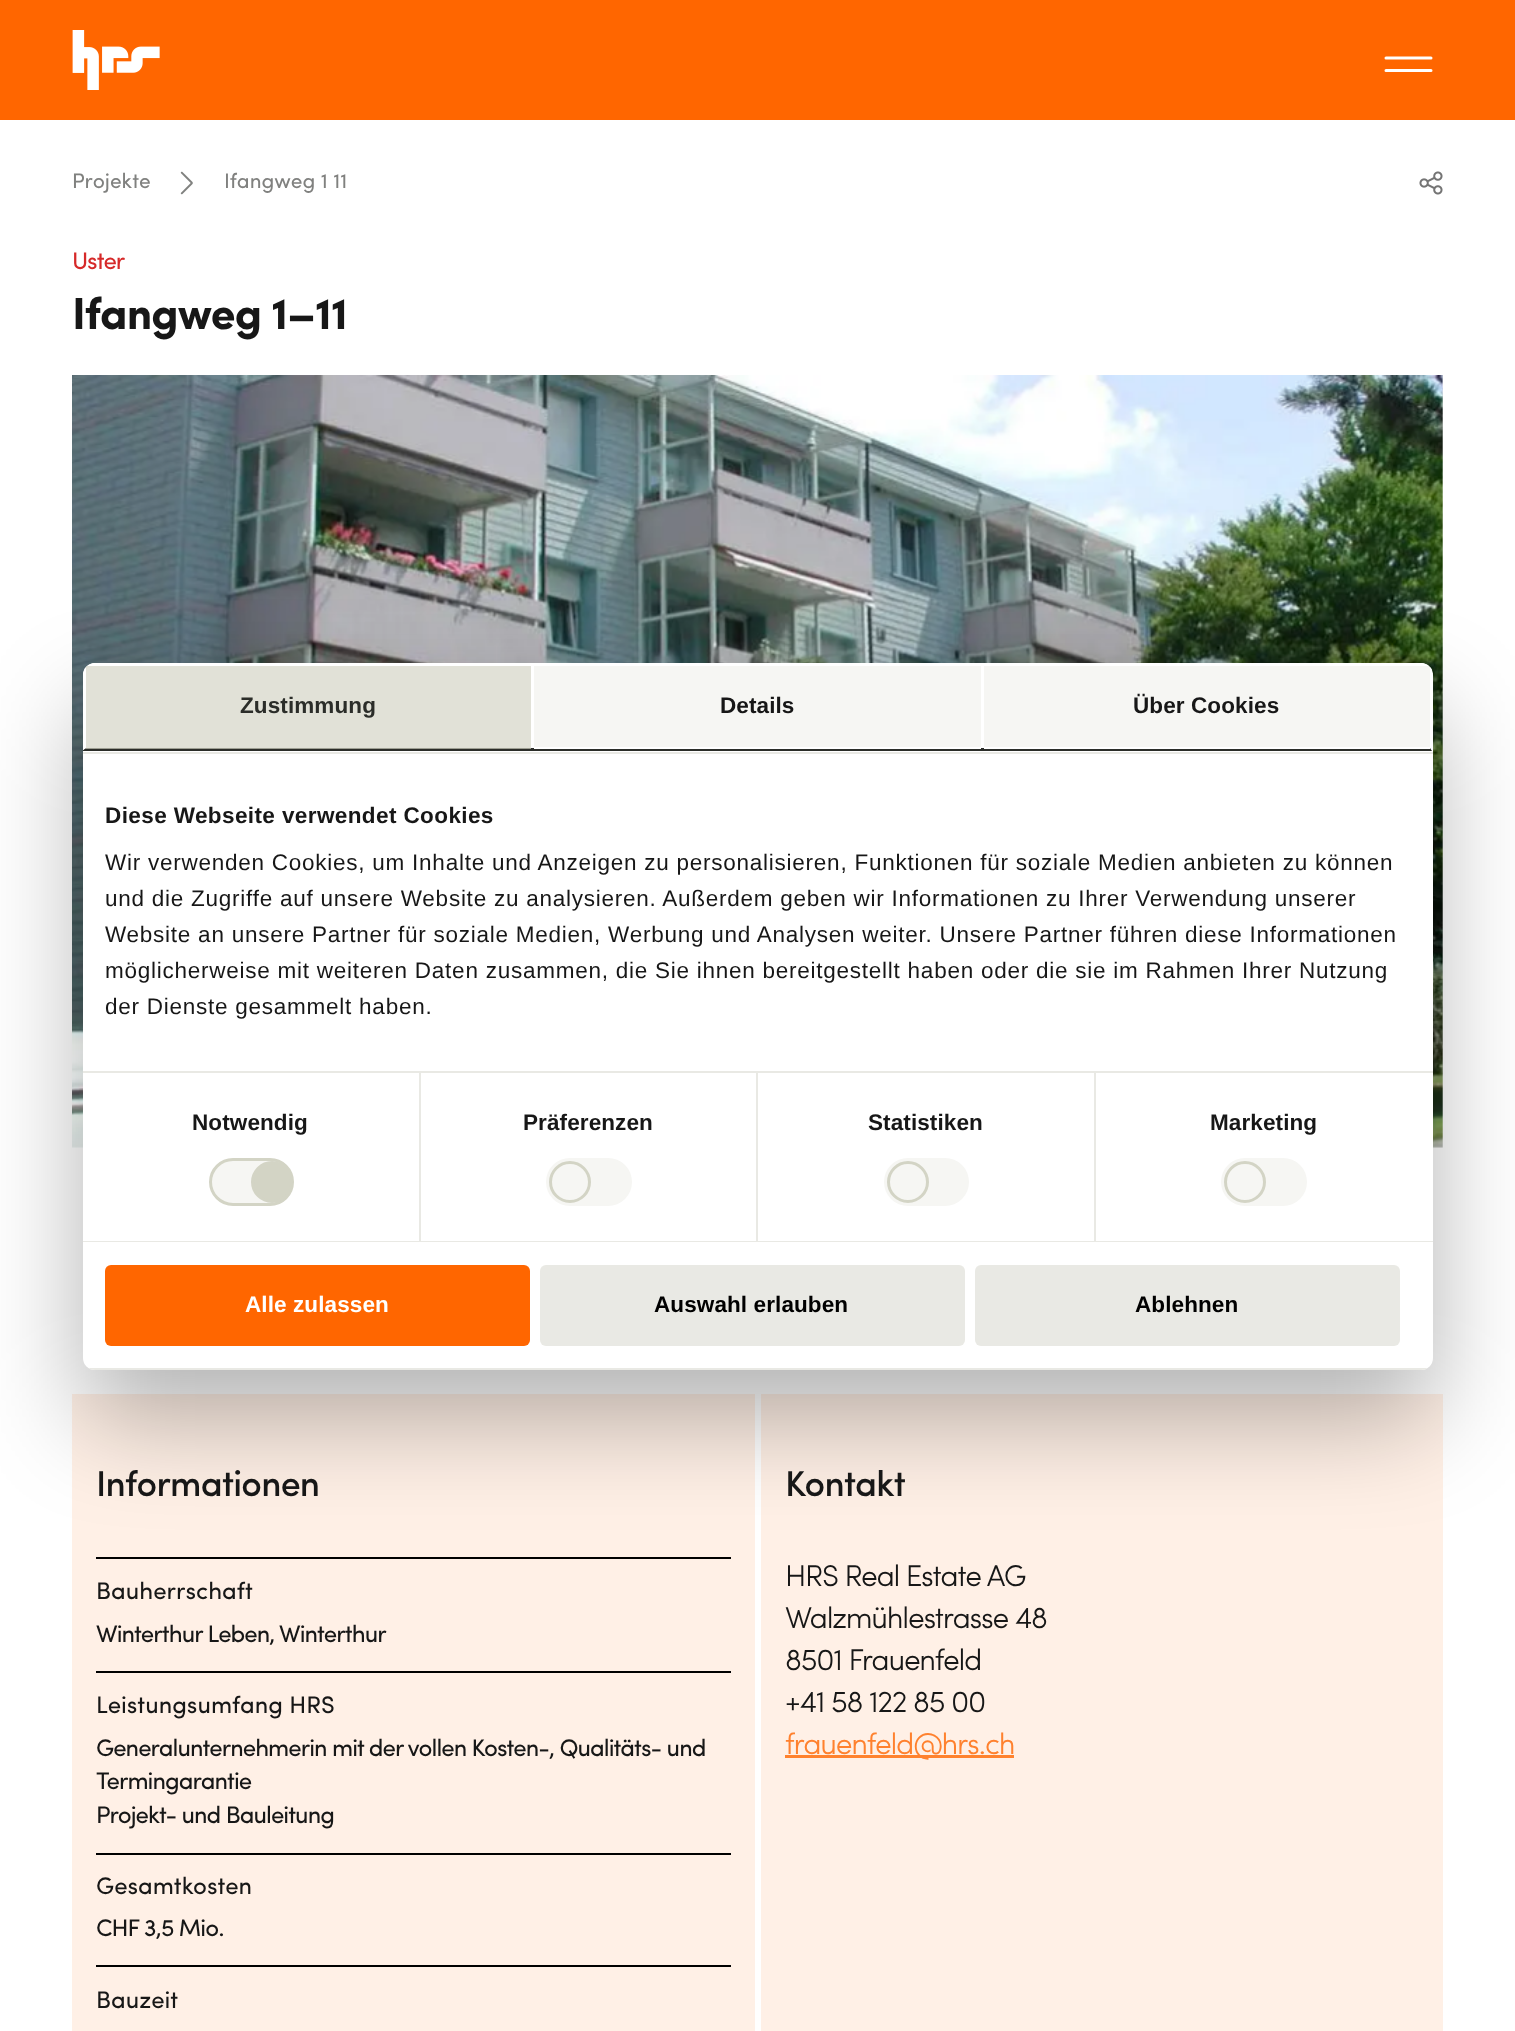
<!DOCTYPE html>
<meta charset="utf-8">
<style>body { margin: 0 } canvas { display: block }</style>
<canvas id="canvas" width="1515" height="2031"></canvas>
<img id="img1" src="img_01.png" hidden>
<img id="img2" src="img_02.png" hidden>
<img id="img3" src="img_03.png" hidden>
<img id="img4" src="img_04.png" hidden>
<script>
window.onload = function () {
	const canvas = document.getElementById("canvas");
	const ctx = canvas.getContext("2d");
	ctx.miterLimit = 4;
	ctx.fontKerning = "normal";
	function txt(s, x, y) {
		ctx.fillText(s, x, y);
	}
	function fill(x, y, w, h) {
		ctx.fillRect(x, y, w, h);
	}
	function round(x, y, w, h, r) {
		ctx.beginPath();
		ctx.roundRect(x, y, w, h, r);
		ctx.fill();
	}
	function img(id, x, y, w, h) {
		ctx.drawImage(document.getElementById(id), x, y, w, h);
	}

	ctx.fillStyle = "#FFFFFF";
	fill(0, 0, 1515, 2031);
	ctx.fillStyle = "#FF6600";
	fill(0, 0, 1515, 120);
	img("img1", 72, 30, 88, 60);
	ctx.beginPath();
	ctx.moveTo(1386, 58);
	ctx.lineTo(1431, 58);
	ctx.moveTo(1386, 70.5);
	ctx.lineTo(1431, 70.5);
	ctx.strokeStyle = "#FFFFFF";
	ctx.lineWidth = 3;
	ctx.lineCap = "round";
	ctx.stroke();
	img("img2", 180, 171, 13, 24);
	img("img3", 1419, 171, 24, 24);
	img("img4", 72, 375, 1371, 773);
	ctx.fillStyle = "#FFF0E6";
	fill(72, 1394, 683, 637);
	ctx.fillStyle = "#000000";
	fill(96, 1557, 635, 2);
	fill(96, 1671, 635, 2);
	fill(96, 1853, 635, 2);
	fill(96, 1965, 635, 2);
	ctx.fillStyle = "#FFF0E6";
	fill(761, 1394, 682, 637);
	ctx.fillStyle = "#FF822E";
	fill(785, 1755, 229, 3);
	ctx.fillStyle = "rgba(0, 0, 0, 0.3)";
	ctx.filter = "blur(51px)";
	ctx.beginPath();
	ctx.roundRect(83, 711, 1350, 707, 12);
	ctx.fill();
	ctx.filter = "none";
	ctx.fillStyle = "#FFFFFF";
	round(83, 663, 1350, 707, 12);
	ctx.fillStyle = "#E9E9E4";
	fill(83, 752, 1350, 2);
	ctx.save();
	ctx.beginPath();
	ctx.roundRect(83, 663, 1350, 707, 12);
	ctx.clip();
	ctx.fillStyle = "#FFFFFF";
	fill(83, 663, 1350, 3);
	ctx.restore();
	ctx.fillStyle = "#FFFFFF";
	ctx.beginPath();
	ctx.moveTo(1432, 670);
	ctx.lineTo(1430, 667);
	ctx.lineTo(1430, 748);
	ctx.lineTo(1432, 751);
	ctx.closePath();
	ctx.fill();
	ctx.fillStyle = "#2B2D29";
	ctx.beginPath();
	ctx.moveTo(1432, 751);
	ctx.lineTo(83, 751);
	ctx.lineTo(83, 750);
	ctx.lineTo(86, 748);
	ctx.lineTo(1430, 748);
	ctx.closePath();
	ctx.fill();
	ctx.fillStyle = "#FFFFFF";
	ctx.beginPath();
	ctx.moveTo(86, 667);
	ctx.lineTo(86, 748);
	ctx.lineTo(83, 750);
	ctx.lineTo(83, 675);
	ctx.bezierCurveTo(83, 672, 84, 669, 86, 667);
	ctx.closePath();
	ctx.fill();
	ctx.fillStyle = "rgba(211, 212, 197, 0.2)";
	fill(86, 666, 445, 83);
	ctx.fillStyle = "rgba(211, 212, 197, 0.6)";
	fill(86, 666, 445, 83);
	ctx.fillStyle = "rgba(211, 212, 197, 0.2)";
	fill(534, 666, 447, 81);
	ctx.fillStyle = "#FFFFFF";
	fill(534, 748, 447, 1);
	ctx.fillStyle = "rgba(211, 212, 197, 0.2)";
	fill(984, 666, 446, 81);
	ctx.fillStyle = "#FFFFFF";
	fill(984, 748, 446, 1);
	ctx.fillStyle = "#E9E9E4";
	fill(83, 1071, 1350, 2);
	fill(83, 1241, 1350, 1);
	fill(419, 1073, 2, 168);
	ctx.fillStyle = "#F6F6F3";
	ctx.beginPath();
	ctx.roundRect(210.5, 1159.5, 82, 45, 22.5);
	ctx.fill();
	ctx.strokeStyle = "#D3D4C5";
	ctx.stroke();
	ctx.fillStyle = "#D3D4C5";
	ctx.beginPath();
	ctx.arc(272, 1182, 19.5, 0, Math.PI * 2);
	ctx.fill();
	ctx.stroke();
	ctx.fillStyle = "#E9E9E4";
	fill(756, 1073, 2, 168);
	ctx.fillStyle = "#F6F6F3";
	round(546, 1158, 86, 48, 24);
	ctx.beginPath();
	ctx.arc(570, 1182, 19.5, 0, Math.PI * 2);
	ctx.stroke();
	ctx.fillStyle = "#E9E9E4";
	fill(1094, 1073, 2, 168);
	ctx.fillStyle = "#F6F6F3";
	round(884, 1158, 85, 48, 24);
	ctx.beginPath();
	ctx.arc(908, 1182, 19.5, 0, Math.PI * 2);
	ctx.stroke();
	round(1221, 1158, 86, 48, 24);
	ctx.beginPath();
	ctx.arc(1245, 1182, 19.5, 0, Math.PI * 2);
	ctx.stroke();
	ctx.save();
	ctx.beginPath();
	ctx.roundRect(83, 663, 1350, 707, 12);
	ctx.clip();
	ctx.fillStyle = "#E9E9E4";
	fill(83, 1368, 1350, 2);
	ctx.restore();
	ctx.fillStyle = "#FF6600";
	round(105, 1265, 425, 81, 6);
	ctx.fillStyle = "#E9E9E4";
	round(540, 1265, 425, 81, 6);
	round(975, 1265, 425, 81, 6);
	ctx.font = "21px Sofia";
	ctx.fillStyle = "#80817F";
	txt("Projekte", 72, 188);
	txt("Ifangweg 1 11", 224, 188);
	ctx.letterSpacing = "-0.95px";
	ctx.font = "24px Sofia";
	ctx.fillStyle = "#D62929";
	txt("Uster", 72, 269);
	ctx.letterSpacing = "-0.9px";
	ctx.font = "bold 45px Sofia";
	ctx.fillStyle = "#171717";
	txt("Ifangweg 1–11", 72, 329);
	ctx.letterSpacing = "-0.75px";
	ctx.font = "500 36px Sofia";
	txt("Informationen", 96, 1496);
	ctx.letterSpacing = "0px";
	ctx.font = "24px Sofia";
	txt("Bauherrschaft", 96, 1599);
	ctx.letterSpacing = "-0.95px";
	txt("Winterthur Leben, Winterthur", 96, 1642);
	ctx.letterSpacing = "0px";
	txt("Leistungsumfang HRS", 96, 1713);
	ctx.letterSpacing = "-0.95px";
	txt("Generalunternehmerin mit der vollen Kosten-, Qualitäts- und", 96, 1756);
	txt("Termingarantie", 96, 1789);
	txt("Projekt- und Bauleitung", 96, 1823);
	ctx.letterSpacing = "0px";
	txt("Gesamtkosten", 96, 1894);
	ctx.letterSpacing = "-0.95px";
	txt("CHF 3,5 Mio.", 96, 1936);
	ctx.letterSpacing = "0px";
	txt("Bauzeit", 96, 2008);
	ctx.letterSpacing = "-0.75px";
	ctx.font = "500 36px Sofia";
	txt("Kontakt", 785, 1496);
	ctx.letterSpacing = "-1.25px";
	ctx.font = "300 30px Sofia";
	txt("HRS Real Estate AG", 785, 1586);
	txt("Walzmühlestrasse 48", 785, 1628);
	txt("8501 Frauenfeld", 785, 1670);
	txt("+41 58 122 85 00", 785, 1712);
	ctx.fillStyle = "#FF812E";
	txt("frauenfeld@hrs.ch", 785, 1754);
	ctx.letterSpacing = "0.1px";
	ctx.font = "bold 22.5px Liberation Sans";
	ctx.fillStyle = "#2B2D29";
	txt("Zustimmung", 240, 713);
	ctx.fillStyle = "#171717";
	txt("Details", 720, 713);
	txt("Über Cookies", 1133, 713);
	ctx.letterSpacing = "0.4px";
	txt("Diese Webseite verwendet Cookies", 105, 823);
	ctx.letterSpacing = "0.75px";
	ctx.font = "22.5px Liberation Sans";
	txt("Wir verwenden Cookies, um Inhalte und Anzeigen zu personalisieren, Funktionen für soziale Medien anbieten zu können", 105, 870);
	txt("und die Zugriffe auf unsere Website zu analysieren. Außerdem geben wir Informationen zu Ihrer Verwendung unserer", 105, 906);
	txt("Website an unsere Partner für soziale Medien, Werbung und Analysen weiter. Unsere Partner führen diese Informationen", 105, 942);
	txt("möglicherweise mit weiteren Daten zusammen, die Sie ihnen bereitgestellt haben oder die sie im Rahmen Ihrer Nutzung", 105, 978);
	txt("der Dienste gesammelt haben.", 105, 1014);
	ctx.letterSpacing = "0.1px";
	ctx.font = "bold 22.5px Liberation Sans";
	txt("Notwendig", 192, 1130);
	txt("Präferenzen", 523, 1130);
	txt("Statistiken", 868, 1130);
	txt("Marketing", 1210, 1130);
	ctx.fillStyle = "#FFFFFF";
	txt("Alle zulassen", 245, 1312);
	ctx.fillStyle = "#000000";
	txt("Auswahl erlauben", 654, 1312);
	txt("Ablehnen", 1135, 1312);
};
</script>
